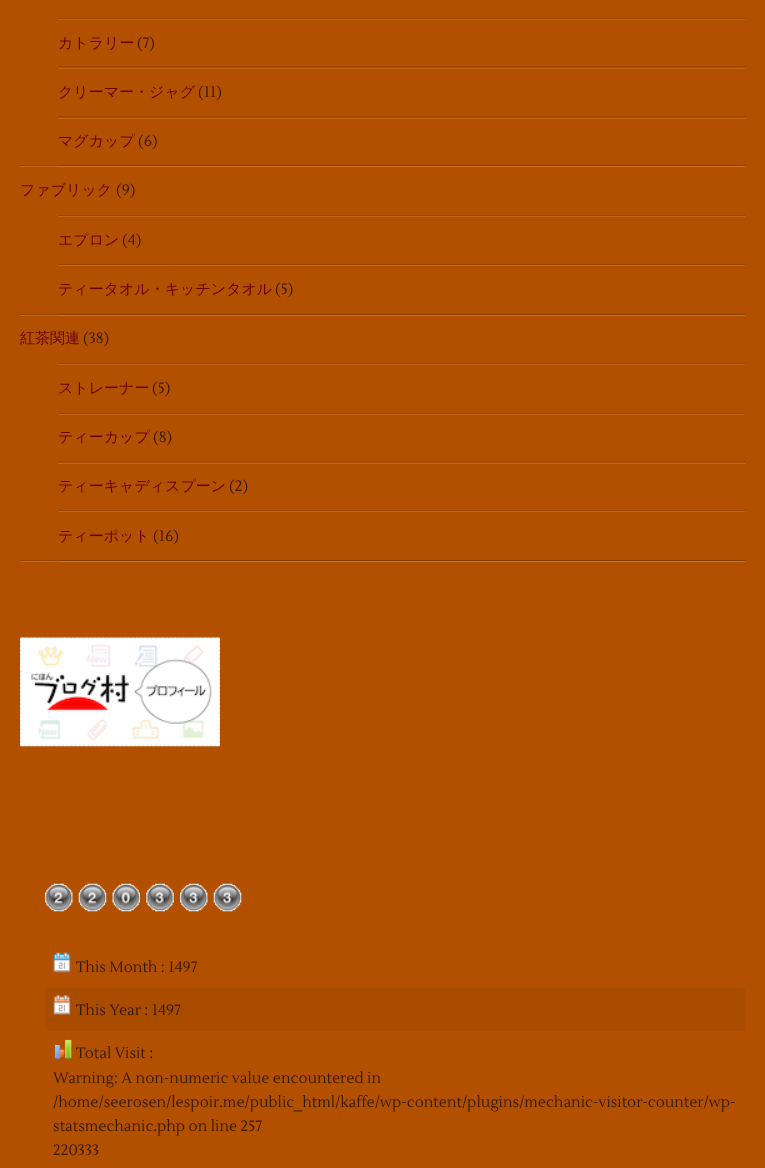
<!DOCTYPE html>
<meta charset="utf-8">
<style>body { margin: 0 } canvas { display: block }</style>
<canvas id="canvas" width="765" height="1168"></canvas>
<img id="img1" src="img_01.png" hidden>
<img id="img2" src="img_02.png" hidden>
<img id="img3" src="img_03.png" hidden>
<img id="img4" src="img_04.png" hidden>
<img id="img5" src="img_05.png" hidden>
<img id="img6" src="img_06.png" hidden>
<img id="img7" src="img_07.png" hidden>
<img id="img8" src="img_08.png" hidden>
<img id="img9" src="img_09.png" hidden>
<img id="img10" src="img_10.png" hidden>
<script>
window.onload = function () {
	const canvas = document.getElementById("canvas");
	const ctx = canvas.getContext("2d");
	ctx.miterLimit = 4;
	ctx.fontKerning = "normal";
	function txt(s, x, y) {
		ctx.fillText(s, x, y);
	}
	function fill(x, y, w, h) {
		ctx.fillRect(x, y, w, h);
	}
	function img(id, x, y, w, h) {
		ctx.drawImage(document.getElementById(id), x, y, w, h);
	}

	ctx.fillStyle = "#B25000";
	fill(0, 0, 765, 1168);
	ctx.fillStyle = "#CB6410";
	fill(20, 315, 38, 1);
	fill(20, 166, 38, 1);
	fill(20, 561, 38, 1);
	ctx.fillStyle = "#994500";
	fill(20, 165, 38, 1);
	fill(58, 18, 687, 1);
	ctx.fillStyle = "#DC711B";
	fill(58, 166, 687, 1);
	ctx.fillStyle = "#CB6410";
	fill(58, 19, 687, 1);
	ctx.fillStyle = "#994500";
	fill(58, 66, 687, 1);
	ctx.fillStyle = "#CB6410";
	fill(58, 68, 687, 1);
	ctx.fillStyle = "#994500";
	fill(58, 116, 687, 1);
	ctx.fillStyle = "#CB6410";
	fill(58, 118, 687, 1);
	ctx.fillStyle = "#843B00";
	fill(58, 165, 687, 1);
	ctx.fillStyle = "#994500";
	fill(20, 314, 38, 1);
	fill(58, 215, 687, 1);
	ctx.fillStyle = "#DC711B";
	fill(58, 315, 687, 1);
	ctx.fillStyle = "#CB6410";
	fill(58, 216, 687, 1);
	ctx.fillStyle = "#994500";
	fill(58, 264, 687, 1);
	ctx.fillStyle = "#CB6410";
	fill(58, 265, 687, 1);
	ctx.fillStyle = "#843B00";
	fill(58, 314, 687, 1);
	ctx.fillStyle = "#994500";
	fill(20, 560, 38, 1);
	fill(58, 363, 687, 1);
	ctx.fillStyle = "#DC711B";
	fill(58, 561, 687, 1);
	ctx.fillStyle = "#CB6410";
	fill(58, 364, 687, 1);
	ctx.fillStyle = "#994500";
	fill(58, 413, 687, 1);
	ctx.fillStyle = "#CB6410";
	fill(58, 414, 687, 1);
	ctx.fillStyle = "#994500";
	fill(58, 461, 687, 1);
	ctx.fillStyle = "#CB6410";
	fill(58, 463, 687, 1);
	ctx.fillStyle = "#994500";
	fill(58, 510, 687, 1);
	ctx.fillStyle = "#CB6410";
	fill(58, 511, 687, 1);
	ctx.fillStyle = "#843B00";
	fill(58, 560, 687, 1);
	img("img1", 20, 637, 200, 110);
	img("img2", 45, 883, 28, 29);
	img("img3", 78, 883, 29, 29);
	img("img4", 112, 883, 28, 29);
	img("img5", 146, 883, 28, 29);
	img("img6", 180, 883, 28, 29);
	img("img7", 213, 883, 29, 29);
	img("img8", 53, 952, 18, 21);
	ctx.fillStyle = "#A94C00";
	fill(45, 988, 700, 43);
	img("img9", 53, 995, 18, 20);
	img("img10", 54, 1039, 18, 20);
	ctx.font = "500 15px WenQuanYi Zen Hei";
	ctx.fillStyle = "#660000";
	txt("カトラリー", 58, 48);
	ctx.font = "15px Lustria";
	ctx.fillStyle = "#351800";
	txt("(7)", 137, 48);
	ctx.font = "500 15px WenQuanYi Zen Hei";
	ctx.fillStyle = "#660000";
	txt("クリーマー・ジャグ", 58, 97);
	ctx.font = "15px Lustria";
	ctx.fillStyle = "#351800";
	txt("(11)", 198, 97);
	ctx.font = "500 15px WenQuanYi Zen Hei";
	ctx.fillStyle = "#660000";
	txt("マグカップ", 58, 146);
	ctx.font = "15px Lustria";
	ctx.fillStyle = "#351800";
	txt("(6)", 138, 146);
	ctx.font = "500 15px WenQuanYi Zen Hei";
	ctx.fillStyle = "#660000";
	txt("ファブリック", 20, 195);
	ctx.font = "15px Lustria";
	ctx.fillStyle = "#351800";
	txt("(9)", 116, 195);
	ctx.font = "500 15px WenQuanYi Zen Hei";
	ctx.fillStyle = "#660000";
	txt("エプロン", 58, 245);
	ctx.font = "15px Lustria";
	ctx.fillStyle = "#351800";
	txt("(4)", 122, 245);
	ctx.font = "500 15px WenQuanYi Zen Hei";
	ctx.fillStyle = "#660000";
	txt("ティータオル・キッチンタオル", 58, 294);
	ctx.font = "15px Lustria";
	ctx.fillStyle = "#351800";
	txt("(5)", 275, 294);
	ctx.font = "500 15px WenQuanYi Zen Hei";
	ctx.fillStyle = "#660000";
	txt("紅茶関連", 20, 343);
	ctx.font = "15px Lustria";
	ctx.fillStyle = "#351800";
	txt("(38)", 83, 343);
	ctx.font = "500 15px WenQuanYi Zen Hei";
	ctx.fillStyle = "#660000";
	txt("ストレーナー", 58, 393);
	ctx.font = "15px Lustria";
	ctx.fillStyle = "#351800";
	txt("(5)", 152, 393);
	ctx.font = "500 15px WenQuanYi Zen Hei";
	ctx.fillStyle = "#660000";
	txt("ティーカップ", 58, 442);
	ctx.font = "15px Lustria";
	ctx.fillStyle = "#351800";
	txt("(8)", 153, 442);
	ctx.font = "500 15px WenQuanYi Zen Hei";
	ctx.fillStyle = "#660000";
	txt("ティーキャディスプーン", 58, 491);
	ctx.font = "15px Lustria";
	ctx.fillStyle = "#351800";
	txt("(2)", 229, 491);
	ctx.font = "500 15px WenQuanYi Zen Hei";
	ctx.fillStyle = "#660000";
	txt("ティーポット", 58, 541);
	ctx.font = "15px Lustria";
	ctx.fillStyle = "#351800";
	txt("(16)", 153, 541);
	txt("This Month : 1497", 76, 972);
	txt("This Year : 1497", 76, 1015);
	txt("Total Visit :", 76, 1058);
	txt("Warning: A non-numeric value encountered in", 53, 1083);
	txt("/home/seerosen/lespoir.me/public_html/kaffe/wp-content/plugins/mechanic-visitor-counter/wp-", 53, 1107);
	txt("statsmechanic.php on line 257", 53, 1131);
	txt("220333", 53, 1155);
};
</script>
